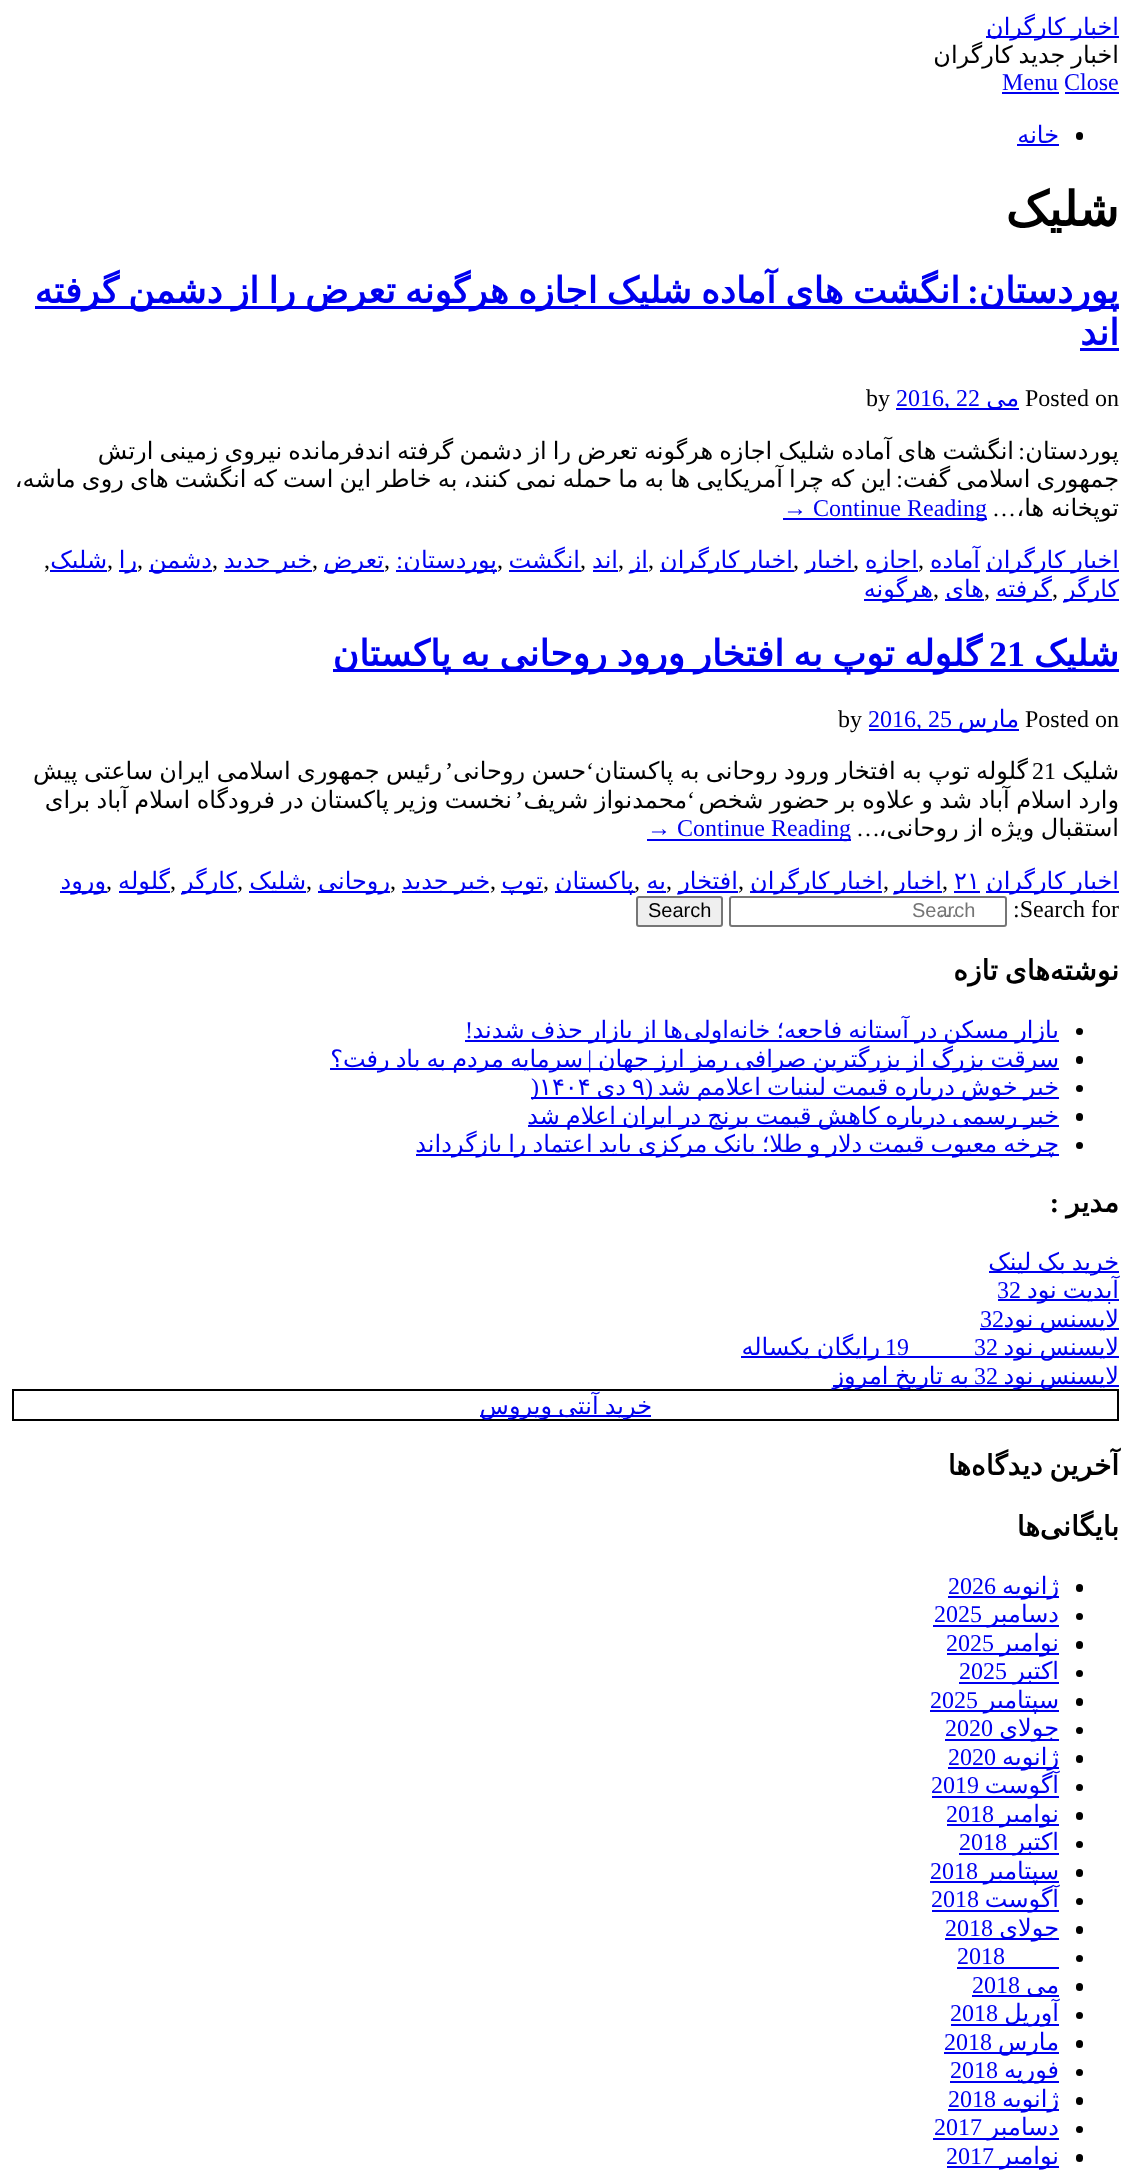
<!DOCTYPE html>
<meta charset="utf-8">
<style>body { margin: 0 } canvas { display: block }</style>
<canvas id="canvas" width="1130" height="2182"></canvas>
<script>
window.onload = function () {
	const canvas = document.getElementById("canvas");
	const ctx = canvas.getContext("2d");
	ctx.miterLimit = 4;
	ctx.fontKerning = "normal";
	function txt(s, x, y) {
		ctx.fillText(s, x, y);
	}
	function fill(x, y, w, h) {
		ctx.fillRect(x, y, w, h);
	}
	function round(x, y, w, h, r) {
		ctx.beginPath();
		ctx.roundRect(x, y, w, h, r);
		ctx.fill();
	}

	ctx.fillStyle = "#FFFFFF";
	fill(0, 0, 1130, 2182);
	ctx.fillStyle = "#0000EE";
	fill(986, 36, 133, 2);
	fill(1002, 92, 57, 2);
	fill(1065, 92, 54, 2);
	ctx.fillStyle = "#000000";
	round(1076, 132, 7, 8, 3.5);
	ctx.fillStyle = "#0000EE";
	fill(1017, 144, 42, 2);
	fill(35, 306, 1084, 3);
	fill(1080, 348, 39, 3);
	fill(896, 408, 123, 2);
	fill(783, 518, 204, 2);
	fill(986, 570, 133, 2);
	fill(930, 570, 50, 2);
	fill(866, 570, 52, 2);
	fill(660, 570, 134, 2);
	fill(630, 570, 18, 2);
	fill(593, 570, 25, 2);
	fill(509, 570, 72, 2);
	fill(396, 570, 101, 2);
	fill(324, 570, 60, 2);
	fill(224, 570, 88, 2);
	fill(149, 570, 63, 2);
	fill(119, 570, 18, 2);
	fill(50, 570, 57, 2);
	fill(1064, 599, 55, 2);
	fill(996, 599, 56, 2);
	fill(945, 599, 39, 2);
	fill(864, 599, 69, 2);
	fill(333, 669, 786, 3);
	fill(869, 729, 150, 2);
	fill(647, 839, 204, 2);
	fill(986, 891, 133, 2);
	fill(954, 891, 26, 2);
	fill(894, 891, 48, 2);
	fill(750, 891, 132, 2);
	fill(678, 891, 60, 2);
	fill(647, 891, 19, 2);
	fill(555, 891, 80, 2);
	fill(501, 891, 42, 2);
	fill(402, 891, 87, 2);
	fill(318, 891, 72, 2);
	fill(249, 891, 57, 2);
	fill(182, 891, 55, 2);
	fill(119, 891, 51, 2);
	ctx.beginPath();
	ctx.roundRect(730, 897, 276, 29, 2);
	ctx.strokeStyle = "#767676";
	ctx.lineWidth = 2;
	ctx.stroke();
	ctx.fillStyle = "#EFEFEF";
	ctx.beginPath();
	ctx.roundRect(637, 897, 85, 29, 2);
	ctx.fill();
	ctx.stroke();
	ctx.fillStyle = "#000000";
	ctx.beginPath();
	ctx.arc(1079.5, 1031.5, 3.5, 0, Math.PI * 2);
	ctx.fill();
	ctx.fillStyle = "#0000EE";
	fill(465, 1040, 594, 2);
	ctx.fillStyle = "#000000";
	round(1076, 1056, 7, 8, 3.5);
	ctx.fillStyle = "#0000EE";
	fill(330, 1068, 729, 2);
	ctx.fillStyle = "#000000";
	ctx.beginPath();
	ctx.arc(1079.5, 1088.5, 3.5, 0, Math.PI * 2);
	ctx.fill();
	ctx.fillStyle = "#0000EE";
	fill(531, 1097, 528, 2);
	ctx.fillStyle = "#000000";
	round(1076, 1113, 7, 8, 3.5);
	ctx.fillStyle = "#0000EE";
	fill(528, 1125, 531, 2);
	ctx.fillStyle = "#000000";
	ctx.beginPath();
	ctx.arc(1079.5, 1145.5, 3.5, 0, Math.PI * 2);
	ctx.fill();
	ctx.fillStyle = "#0000EE";
	fill(416, 1154, 643, 2);
	fill(989, 1271, 130, 2);
	fill(998, 1299, 121, 2);
	fill(980, 1328, 139, 2);
	fill(741, 1356, 378, 2);
	fill(833, 1385, 286, 2);
	ctx.strokeStyle = "#000000";
	ctx.strokeRect(13, 1390, 1105, 30);
	fill(480, 1415, 171, 2);
	ctx.fillStyle = "#000000";
	round(1076, 1584, 7, 8, 3.5);
	ctx.fillStyle = "#0000EE";
	fill(948, 1596, 111, 2);
	ctx.fillStyle = "#000000";
	ctx.beginPath();
	ctx.arc(1079.5, 1616.5, 3.5, 0, Math.PI * 2);
	ctx.fill();
	ctx.fillStyle = "#0000EE";
	fill(933, 1625, 126, 2);
	ctx.fillStyle = "#000000";
	round(1076, 1641, 7, 8, 3.5);
	ctx.fillStyle = "#0000EE";
	fill(947, 1653, 112, 2);
	ctx.fillStyle = "#000000";
	ctx.beginPath();
	ctx.arc(1079.5, 1673.5, 3.5, 0, Math.PI * 2);
	ctx.fill();
	ctx.fillStyle = "#0000EE";
	fill(959, 1682, 100, 2);
	ctx.fillStyle = "#000000";
	round(1076, 1698, 7, 8, 3.5);
	ctx.fillStyle = "#0000EE";
	fill(930, 1710, 129, 2);
	ctx.fillStyle = "#000000";
	ctx.beginPath();
	ctx.arc(1079.5, 1730.5, 3.5, 0, Math.PI * 2);
	ctx.fill();
	ctx.fillStyle = "#0000EE";
	fill(945, 1739, 114, 2);
	ctx.fillStyle = "#000000";
	round(1076, 1755, 7, 8, 3.5);
	ctx.fillStyle = "#0000EE";
	fill(948, 1767, 111, 2);
	ctx.fillStyle = "#000000";
	ctx.beginPath();
	ctx.arc(1079.5, 1787.5, 3.5, 0, Math.PI * 2);
	ctx.fill();
	ctx.fillStyle = "#0000EE";
	fill(932, 1796, 127, 2);
	ctx.fillStyle = "#000000";
	round(1076, 1812, 7, 8, 3.5);
	ctx.fillStyle = "#0000EE";
	fill(947, 1824, 112, 2);
	ctx.fillStyle = "#000000";
	ctx.beginPath();
	ctx.arc(1079.5, 1844.5, 3.5, 0, Math.PI * 2);
	ctx.fill();
	ctx.fillStyle = "#0000EE";
	fill(959, 1853, 100, 2);
	ctx.fillStyle = "#000000";
	round(1076, 1869, 7, 8, 3.5);
	ctx.fillStyle = "#0000EE";
	fill(930, 1881, 129, 2);
	ctx.fillStyle = "#000000";
	ctx.beginPath();
	ctx.arc(1079.5, 1901.5, 3.5, 0, Math.PI * 2);
	ctx.fill();
	ctx.fillStyle = "#0000EE";
	fill(932, 1910, 127, 2);
	ctx.fillStyle = "#000000";
	round(1076, 1926, 7, 8, 3.5);
	ctx.fillStyle = "#0000EE";
	fill(945, 1938, 114, 2);
	ctx.fillStyle = "#000000";
	ctx.beginPath();
	ctx.arc(1079.5, 1958.5, 3.5, 0, Math.PI * 2);
	ctx.fill();
	ctx.fillStyle = "#0000EE";
	fill(957, 1967, 102, 2);
	ctx.fillStyle = "#000000";
	round(1076, 1983, 7, 8, 3.5);
	ctx.fillStyle = "#0000EE";
	fill(972, 1995, 87, 2);
	ctx.fillStyle = "#000000";
	ctx.beginPath();
	ctx.arc(1079.5, 2015.5, 3.5, 0, Math.PI * 2);
	ctx.fill();
	ctx.fillStyle = "#0000EE";
	fill(951, 2024, 108, 2);
	ctx.fillStyle = "#000000";
	round(1076, 2040, 7, 8, 3.5);
	ctx.fillStyle = "#0000EE";
	fill(944, 2052, 115, 2);
	ctx.fillStyle = "#000000";
	ctx.beginPath();
	ctx.arc(1079.5, 2072.5, 3.5, 0, Math.PI * 2);
	ctx.fill();
	ctx.fillStyle = "#0000EE";
	fill(950, 2081, 109, 2);
	ctx.fillStyle = "#000000";
	round(1076, 2097, 7, 8, 3.5);
	ctx.fillStyle = "#0000EE";
	fill(948, 2109, 111, 2);
	ctx.fillStyle = "#000000";
	ctx.beginPath();
	ctx.arc(1079.5, 2129.5, 3.5, 0, Math.PI * 2);
	ctx.fill();
	ctx.fillStyle = "#0000EE";
	fill(933, 2138, 126, 2);
	ctx.fillStyle = "#000000";
	round(1076, 2154, 7, 8, 3.5);
	ctx.fillStyle = "#0000EE";
	fill(947, 2166, 112, 2);
	ctx.wordSpacing = "-1.6px";
	ctx.direction = "rtl";
	ctx.font = "24px DejaVu Sans";
	txt("اخبار کارگران", 1119, 35);
	ctx.fillStyle = "#000000";
	txt("اخبار جدید کارگران", 1119, 63);
	ctx.wordSpacing = "0px";
	ctx.direction = "ltr";
	ctx.font = "24px Liberation Serif";
	ctx.fillStyle = "#0000EE";
	txt("Menu Close", 1002, 90);
	ctx.direction = "rtl";
	ctx.font = "24px DejaVu Sans";
	txt("خانه", 1059, 143);
	ctx.font = "bold 48px DejaVu Sans";
	ctx.fillStyle = "#000000";
	txt("شلیک", 1119, 226);
	ctx.font = "bold 36px DejaVu Sans";
	ctx.fillStyle = "#0000EE";
	txt("پوردستان", 1119, 303);
	ctx.font = "bold 36px Liberation Serif";
	txt(":", 979, 303);
	ctx.wordSpacing = "-2.25px";
	ctx.font = "bold 36px DejaVu Sans";
	txt("انگشت های آماده شلیک اجازه هرگونه تعرض را از دشمن گرفته", 960, 303);
	ctx.wordSpacing = "0px";
	txt("اند", 1119, 345);
	ctx.direction = "ltr";
	ctx.font = "24px Liberation Serif";
	ctx.fillStyle = "#000000";
	txt("Posted on", 1025, 406);
	ctx.direction = "rtl";
	ctx.font = "24px DejaVu Sans";
	ctx.fillStyle = "#0000EE";
	txt("می", 1019, 406);
	ctx.direction = "ltr";
	ctx.font = "24px Liberation Serif";
	txt("2016, 22", 896, 406);
	ctx.fillStyle = "#000000";
	txt("by", 866, 406);
	ctx.direction = "rtl";
	ctx.font = "24px DejaVu Sans";
	txt("پوردستان", 1119, 459);
	ctx.font = "24px Liberation Serif";
	txt(":", 1025, 459);
	ctx.wordSpacing = "-1.5px";
	ctx.font = "24px DejaVu Sans";
	txt("انگشت های آماده شلیک اجازه هرگونه تعرض را از دشمن گرفته اندفرمانده نیروی زمینی ارتش", 1014, 459);
	txt("جمهوری اسلامی گفت", 1119, 487);
	ctx.wordSpacing = "0px";
	ctx.font = "24px Liberation Serif";
	txt(":", 903, 487);
	ctx.wordSpacing = "-1.5px";
	ctx.font = "24px DejaVu Sans";
	txt("این که چرا آمریکایی ها به ما حمله نمی کنند، به خاطر این است که انگشت های روی ماشه،", 892, 487);
	ctx.wordSpacing = "-1px";
	txt("توپخانه ها،", 1119, 516);
	ctx.wordSpacing = "0px";
	ctx.font = "24px Liberation Serif";
	txt("…", 1016, 516);
	ctx.direction = "ltr";
	ctx.fillStyle = "#0000EE";
	txt("Continue Reading", 813, 516);
	txt("→", 783, 516);
	ctx.wordSpacing = "-1.6px";
	ctx.direction = "rtl";
	ctx.font = "24px DejaVu Sans";
	txt("اخبار کارگران", 1119, 568);
	ctx.wordSpacing = "0px";
	txt("آماده", 980, 568);
	ctx.direction = "ltr";
	ctx.font = "24px Liberation Serif";
	ctx.fillStyle = "#000000";
	txt(",", 918, 568);
	ctx.direction = "rtl";
	ctx.font = "24px DejaVu Sans";
	ctx.fillStyle = "#0000EE";
	txt("اجازه", 918, 568);
	ctx.direction = "ltr";
	ctx.font = "24px Liberation Serif";
	ctx.fillStyle = "#000000";
	txt(",", 853, 568);
	ctx.fillStyle = "#0000EE";
	fill(806, 570, 48, 2);
	ctx.direction = "rtl";
	ctx.font = "24px DejaVu Sans";
	txt("اخبار", 853, 568);
	ctx.direction = "ltr";
	ctx.font = "24px Liberation Serif";
	ctx.fillStyle = "#000000";
	txt(",", 793, 568);
	ctx.wordSpacing = "-1.6px";
	ctx.direction = "rtl";
	ctx.font = "24px DejaVu Sans";
	ctx.fillStyle = "#0000EE";
	txt("اخبار کارگران", 793, 568);
	ctx.wordSpacing = "0px";
	ctx.direction = "ltr";
	ctx.font = "24px Liberation Serif";
	ctx.fillStyle = "#000000";
	txt(",", 648, 568);
	ctx.direction = "rtl";
	ctx.font = "24px DejaVu Sans";
	ctx.fillStyle = "#0000EE";
	txt("از", 648, 568);
	ctx.direction = "ltr";
	ctx.font = "24px Liberation Serif";
	ctx.fillStyle = "#000000";
	txt(",", 618, 568);
	ctx.direction = "rtl";
	ctx.font = "24px DejaVu Sans";
	ctx.fillStyle = "#0000EE";
	txt("اند", 618, 568);
	ctx.direction = "ltr";
	ctx.font = "24px Liberation Serif";
	ctx.fillStyle = "#000000";
	txt(",", 580, 568);
	ctx.direction = "rtl";
	ctx.font = "24px DejaVu Sans";
	ctx.fillStyle = "#0000EE";
	txt("انگشت", 580, 568);
	ctx.direction = "ltr";
	ctx.font = "24px Liberation Serif";
	ctx.fillStyle = "#000000";
	txt(",", 497, 568);
	ctx.direction = "rtl";
	ctx.font = "24px DejaVu Sans";
	ctx.fillStyle = "#0000EE";
	txt("پوردستان", 497, 568);
	ctx.font = "24px Liberation Serif";
	txt(":", 403, 568);
	ctx.direction = "ltr";
	ctx.fillStyle = "#000000";
	txt(",", 384, 568);
	ctx.direction = "rtl";
	ctx.font = "24px DejaVu Sans";
	ctx.fillStyle = "#0000EE";
	txt("تعرض", 384, 568);
	ctx.direction = "ltr";
	ctx.font = "24px Liberation Serif";
	ctx.fillStyle = "#000000";
	txt(",", 312, 568);
	ctx.wordSpacing = "-1.6px";
	ctx.direction = "rtl";
	ctx.font = "24px DejaVu Sans";
	ctx.fillStyle = "#0000EE";
	txt("خبر جدید", 312, 568);
	ctx.wordSpacing = "0px";
	ctx.direction = "ltr";
	ctx.font = "24px Liberation Serif";
	ctx.fillStyle = "#000000";
	txt(",", 212, 568);
	ctx.direction = "rtl";
	ctx.font = "24px DejaVu Sans";
	ctx.fillStyle = "#0000EE";
	txt("دشمن", 212, 568);
	ctx.direction = "ltr";
	ctx.font = "24px Liberation Serif";
	ctx.fillStyle = "#000000";
	txt(",", 137, 568);
	ctx.direction = "rtl";
	ctx.font = "24px DejaVu Sans";
	ctx.fillStyle = "#0000EE";
	txt("را", 137, 568);
	ctx.direction = "ltr";
	ctx.font = "24px Liberation Serif";
	ctx.fillStyle = "#000000";
	txt(",", 107, 568);
	ctx.direction = "rtl";
	ctx.font = "24px DejaVu Sans";
	ctx.fillStyle = "#0000EE";
	txt("شلیک", 107, 568);
	ctx.direction = "ltr";
	ctx.font = "24px Liberation Serif";
	ctx.fillStyle = "#000000";
	txt(",", 44, 568);
	ctx.direction = "rtl";
	ctx.font = "24px DejaVu Sans";
	ctx.fillStyle = "#0000EE";
	txt("کارگر", 1119, 597);
	ctx.direction = "ltr";
	ctx.font = "24px Liberation Serif";
	ctx.fillStyle = "#000000";
	txt(",", 1052, 597);
	ctx.direction = "rtl";
	ctx.font = "24px DejaVu Sans";
	ctx.fillStyle = "#0000EE";
	txt("گرفته", 1052, 597);
	ctx.direction = "ltr";
	ctx.font = "24px Liberation Serif";
	ctx.fillStyle = "#000000";
	txt(",", 984, 597);
	ctx.direction = "rtl";
	ctx.font = "24px DejaVu Sans";
	ctx.fillStyle = "#0000EE";
	txt("های", 984, 597);
	ctx.direction = "ltr";
	ctx.font = "24px Liberation Serif";
	ctx.fillStyle = "#000000";
	txt(",", 933, 597);
	ctx.direction = "rtl";
	ctx.font = "24px DejaVu Sans";
	ctx.fillStyle = "#0000EE";
	txt("هرگونه", 933, 597);
	ctx.font = "bold 36px DejaVu Sans";
	txt("شلیک", 1119, 666);
	ctx.direction = "ltr";
	ctx.font = "bold 36px Liberation Serif";
	txt("21", 989, 666);
	ctx.wordSpacing = "-2px";
	ctx.direction = "rtl";
	ctx.font = "bold 36px DejaVu Sans";
	txt("گلوله توپ به افتخار ورود روحانی به پاکستان", 982, 666);
	ctx.wordSpacing = "0px";
	ctx.direction = "ltr";
	ctx.font = "24px Liberation Serif";
	ctx.fillStyle = "#000000";
	txt("Posted on", 1025, 727);
	ctx.direction = "rtl";
	ctx.font = "24px DejaVu Sans";
	ctx.fillStyle = "#0000EE";
	txt("مارس", 1019, 727);
	ctx.direction = "ltr";
	ctx.font = "24px Liberation Serif";
	txt("2016, 25", 868, 727);
	ctx.fillStyle = "#000000";
	txt("by", 838, 727);
	ctx.direction = "rtl";
	ctx.font = "24px DejaVu Sans";
	txt("شلیک", 1119, 779);
	ctx.direction = "ltr";
	ctx.font = "24px Liberation Serif";
	txt("21", 1032, 779);
	ctx.wordSpacing = "-1.25px";
	ctx.direction = "rtl";
	ctx.font = "24px DejaVu Sans";
	txt("گلوله توپ به افتخار ورود روحانی به پاکستان", 1028, 779);
	ctx.wordSpacing = "0px";
	ctx.font = "24px Liberation Serif";
	txt("‘", 594, 779);
	ctx.wordSpacing = "-1.25px";
	ctx.font = "24px DejaVu Sans";
	txt("حسن روحانی", 586, 779);
	ctx.wordSpacing = "0px";
	ctx.font = "24px Liberation Serif";
	txt("’", 453, 779);
	ctx.wordSpacing = "-1.25px";
	ctx.font = "24px DejaVu Sans";
	txt("رئیس جمهوری اسلامی ایران ساعتی پیش", 442, 779);
	txt("وارد اسلام آباد شد و علاوه بر حضور شخص", 1119, 808);
	ctx.wordSpacing = "0px";
	ctx.font = "24px Liberation Serif";
	txt("‘", 695, 808);
	ctx.wordSpacing = "-1.25px";
	ctx.font = "24px DejaVu Sans";
	txt("محمدنواز شریف", 687, 808);
	ctx.wordSpacing = "0px";
	ctx.font = "24px Liberation Serif";
	txt("’", 523, 808);
	ctx.wordSpacing = "-1.25px";
	ctx.font = "24px DejaVu Sans";
	txt("نخست وزیر پاکستان در فرودگاه اسلام آباد برای", 512, 808);
	ctx.wordSpacing = "-1px";
	txt("استقبال ویژه از روحانی،", 1119, 836);
	ctx.wordSpacing = "0px";
	ctx.font = "24px Liberation Serif";
	txt("…", 880, 836);
	ctx.direction = "ltr";
	ctx.fillStyle = "#0000EE";
	txt("Continue Reading", 677, 836);
	txt("→", 647, 836);
	ctx.wordSpacing = "-1.6px";
	ctx.direction = "rtl";
	ctx.font = "24px DejaVu Sans";
	txt("اخبار کارگران", 1119, 889);
	ctx.wordSpacing = "0px";
	ctx.direction = "ltr";
	txt("۲۱", 954, 889);
	ctx.font = "24px Liberation Serif";
	ctx.fillStyle = "#000000";
	txt(",", 942, 889);
	ctx.direction = "rtl";
	ctx.font = "24px DejaVu Sans";
	ctx.fillStyle = "#0000EE";
	txt("اخبار", 942, 889);
	ctx.direction = "ltr";
	ctx.font = "24px Liberation Serif";
	ctx.fillStyle = "#000000";
	txt(",", 883, 889);
	ctx.wordSpacing = "-1.6px";
	ctx.direction = "rtl";
	ctx.font = "24px DejaVu Sans";
	ctx.fillStyle = "#0000EE";
	txt("اخبار کارگران", 883, 889);
	ctx.wordSpacing = "0px";
	ctx.direction = "ltr";
	ctx.font = "24px Liberation Serif";
	ctx.fillStyle = "#000000";
	txt(",", 738, 889);
	ctx.direction = "rtl";
	ctx.font = "24px DejaVu Sans";
	ctx.fillStyle = "#0000EE";
	txt("افتخار", 738, 889);
	ctx.direction = "ltr";
	ctx.font = "24px Liberation Serif";
	ctx.fillStyle = "#000000";
	txt(",", 666, 889);
	ctx.direction = "rtl";
	ctx.font = "24px DejaVu Sans";
	ctx.fillStyle = "#0000EE";
	txt("به", 666, 889);
	ctx.direction = "ltr";
	ctx.font = "24px Liberation Serif";
	ctx.fillStyle = "#000000";
	txt(",", 634, 889);
	ctx.direction = "rtl";
	ctx.font = "24px DejaVu Sans";
	ctx.fillStyle = "#0000EE";
	txt("پاکستان", 634, 889);
	ctx.direction = "ltr";
	ctx.font = "24px Liberation Serif";
	ctx.fillStyle = "#000000";
	txt(",", 543, 889);
	ctx.direction = "rtl";
	ctx.font = "24px DejaVu Sans";
	ctx.fillStyle = "#0000EE";
	txt("توپ", 543, 889);
	ctx.direction = "ltr";
	ctx.font = "24px Liberation Serif";
	ctx.fillStyle = "#000000";
	txt(",", 490, 889);
	ctx.wordSpacing = "-1.6px";
	ctx.direction = "rtl";
	ctx.font = "24px DejaVu Sans";
	ctx.fillStyle = "#0000EE";
	txt("خبر جدید", 490, 889);
	ctx.wordSpacing = "0px";
	ctx.direction = "ltr";
	ctx.font = "24px Liberation Serif";
	ctx.fillStyle = "#000000";
	txt(",", 390, 889);
	ctx.direction = "rtl";
	ctx.font = "24px DejaVu Sans";
	ctx.fillStyle = "#0000EE";
	txt("روحانی", 390, 889);
	ctx.direction = "ltr";
	ctx.font = "24px Liberation Serif";
	ctx.fillStyle = "#000000";
	txt(",", 306, 889);
	ctx.direction = "rtl";
	ctx.font = "24px DejaVu Sans";
	ctx.fillStyle = "#0000EE";
	txt("شلیک", 306, 889);
	ctx.direction = "ltr";
	ctx.font = "24px Liberation Serif";
	ctx.fillStyle = "#000000";
	txt(",", 237, 889);
	ctx.direction = "rtl";
	ctx.font = "24px DejaVu Sans";
	ctx.fillStyle = "#0000EE";
	txt("کارگر", 237, 889);
	ctx.direction = "ltr";
	ctx.font = "24px Liberation Serif";
	ctx.fillStyle = "#000000";
	txt(",", 170, 889);
	ctx.direction = "rtl";
	ctx.font = "24px DejaVu Sans";
	ctx.fillStyle = "#0000EE";
	txt("گلوله", 170, 889);
	ctx.direction = "ltr";
	ctx.font = "24px Liberation Serif";
	ctx.fillStyle = "#000000";
	txt(",", 106, 889);
	ctx.fillStyle = "#0000EE";
	fill(60, 891, 47, 2);
	ctx.direction = "rtl";
	ctx.font = "24px DejaVu Sans";
	txt("ورود", 106, 889);
	ctx.direction = "ltr";
	ctx.font = "24px Liberation Serif";
	ctx.fillStyle = "#000000";
	txt(":Search for", 1013, 917);
	ctx.font = "20px Liberation Sans";
	ctx.fillStyle = "#757575";
	txt("Search", 912, 917);
	txt("…", 938, 917);
	ctx.fillStyle = "#000000";
	txt("Search", 648, 917);
	ctx.direction = "rtl";
	ctx.font = "bold 28px DejaVu Sans";
	txt("نوشته", 1119, 980);
	ctx.wordSpacing = "-2px";
	txt("های تازه", 1050, 980);
	ctx.wordSpacing = "-1.6px";
	ctx.font = "24px DejaVu Sans";
	ctx.fillStyle = "#0000EE";
	txt("بازار مسکن در آستانه فاجعه؛ خانه", 1059, 1038);
	ctx.wordSpacing = "0px";
	txt("اولی", 729, 1038);
	ctx.wordSpacing = "-1.6px";
	txt("ها از بازار حذف شدند", 683, 1038);
	ctx.wordSpacing = "0px";
	ctx.font = "24px Liberation Serif";
	txt("!", 473, 1038);
	ctx.wordSpacing = "-1.5px";
	ctx.font = "24px DejaVu Sans";
	txt("سرقت بزرگ از بزرگترین صرافی رمز ارز جهان", 1059, 1067);
	ctx.wordSpacing = "0px";
	ctx.font = "24px Liberation Serif";
	txt("|", 592, 1067);
	ctx.wordSpacing = "-1.5px";
	ctx.font = "24px DejaVu Sans";
	txt("سرمایه مردم به باد رفت؟", 583, 1067);
	txt("خبر خوش درباره قیمت لبنیات اعلامم شد", 1059, 1095);
	ctx.wordSpacing = "0px";
	ctx.font = "24px Liberation Serif";
	txt("(", 653, 1095);
	ctx.direction = "ltr";
	ctx.font = "24px DejaVu Sans";
	txt("۹", 632, 1095);
	ctx.direction = "rtl";
	txt("دی", 626, 1095);
	ctx.direction = "ltr";
	txt("۱۴۰۴", 539, 1095);
	ctx.font = "24px Liberation Serif";
	txt(")", 531, 1095);
	ctx.wordSpacing = "-1.6px";
	ctx.direction = "rtl";
	ctx.font = "24px DejaVu Sans";
	txt("خبر رسمی درباره کاهش قیمت برنج در ایران اعلام شد", 1059, 1124);
	txt("چرخه معیوب قیمت دلار و طلا؛ بانک مرکزی باید اعتماد را بازگرداند", 1059, 1152);
	ctx.wordSpacing = "0px";
	ctx.font = "bold 28px DejaVu Sans";
	ctx.fillStyle = "#000000";
	txt("مدیر", 1119, 1212);
	ctx.font = "bold 28px Liberation Serif";
	txt(":", 1059, 1212);
	ctx.wordSpacing = "-1.6px";
	ctx.font = "24px DejaVu Sans";
	ctx.fillStyle = "#0000EE";
	txt("خرید بک لینک", 1119, 1270);
	txt("آپدیت نود", 1119, 1298);
	ctx.wordSpacing = "0px";
	ctx.direction = "ltr";
	ctx.font = "24px Liberation Serif";
	txt("32", 997, 1298);
	ctx.wordSpacing = "-1.6px";
	ctx.direction = "rtl";
	ctx.font = "24px DejaVu Sans";
	txt("لایسنس نود", 1119, 1327);
	ctx.wordSpacing = "0px";
	ctx.direction = "ltr";
	ctx.font = "24px Liberation Serif";
	txt("32", 980, 1327);
	ctx.wordSpacing = "-1.6px";
	ctx.direction = "rtl";
	ctx.font = "24px DejaVu Sans";
	txt("لایسنس نود", 1119, 1355);
	ctx.wordSpacing = "0px";
	ctx.direction = "ltr";
	ctx.font = "24px Liberation Serif";
	txt("32", 974, 1355);
	txt("19", 885, 1355);
	ctx.wordSpacing = "-1px";
	ctx.direction = "rtl";
	ctx.font = "24px DejaVu Sans";
	txt("رایگان یکساله", 880, 1355);
	ctx.wordSpacing = "-1.6px";
	txt("لایسنس نود", 1119, 1384);
	ctx.wordSpacing = "0px";
	ctx.direction = "ltr";
	ctx.font = "24px Liberation Serif";
	txt("32", 974, 1384);
	ctx.wordSpacing = "-1px";
	ctx.direction = "rtl";
	ctx.font = "24px DejaVu Sans";
	txt("به تاریخ امروز", 969, 1384);
	ctx.wordSpacing = "-1.6px";
	txt("خرید آنتی ویروس", 652, 1414);
	ctx.wordSpacing = "-2px";
	ctx.font = "bold 28px DejaVu Sans";
	ctx.fillStyle = "#000000";
	txt("آخرین دیدگاه", 1119, 1475);
	ctx.wordSpacing = "0px";
	txt("ها", 971, 1475);
	txt("بایگانی", 1119, 1536);
	txt("ها", 1040, 1536);
	ctx.font = "24px DejaVu Sans";
	ctx.fillStyle = "#0000EE";
	txt("ژانویه", 1059, 1594);
	ctx.direction = "ltr";
	ctx.font = "24px Liberation Serif";
	txt("2026", 948, 1594);
	ctx.direction = "rtl";
	ctx.font = "24px DejaVu Sans";
	txt("دسامبر", 1059, 1622);
	ctx.direction = "ltr";
	ctx.font = "24px Liberation Serif";
	txt("2025", 934, 1622);
	ctx.direction = "rtl";
	ctx.font = "24px DejaVu Sans";
	txt("نوامبر", 1059, 1651);
	ctx.direction = "ltr";
	ctx.font = "24px Liberation Serif";
	txt("2025", 946, 1651);
	ctx.direction = "rtl";
	ctx.font = "24px DejaVu Sans";
	txt("اکتبر", 1059, 1679);
	ctx.direction = "ltr";
	ctx.font = "24px Liberation Serif";
	txt("2025", 959, 1679);
	ctx.direction = "rtl";
	ctx.font = "24px DejaVu Sans";
	txt("سپتامبر", 1059, 1708);
	ctx.direction = "ltr";
	ctx.font = "24px Liberation Serif";
	txt("2025", 930, 1708);
	ctx.direction = "rtl";
	ctx.font = "24px DejaVu Sans";
	txt("جولای", 1059, 1736);
	ctx.direction = "ltr";
	ctx.font = "24px Liberation Serif";
	txt("2020", 945, 1736);
	ctx.direction = "rtl";
	ctx.font = "24px DejaVu Sans";
	txt("ژانویه", 1059, 1765);
	ctx.direction = "ltr";
	ctx.font = "24px Liberation Serif";
	txt("2020", 948, 1765);
	ctx.direction = "rtl";
	ctx.font = "24px DejaVu Sans";
	txt("آگوست", 1059, 1793);
	ctx.direction = "ltr";
	ctx.font = "24px Liberation Serif";
	txt("2019", 931, 1793);
	ctx.direction = "rtl";
	ctx.font = "24px DejaVu Sans";
	txt("نوامبر", 1059, 1822);
	ctx.direction = "ltr";
	ctx.font = "24px Liberation Serif";
	txt("2018", 946, 1822);
	ctx.direction = "rtl";
	ctx.font = "24px DejaVu Sans";
	txt("اکتبر", 1059, 1850);
	ctx.direction = "ltr";
	ctx.font = "24px Liberation Serif";
	txt("2018", 959, 1850);
	ctx.direction = "rtl";
	ctx.font = "24px DejaVu Sans";
	txt("سپتامبر", 1059, 1879);
	ctx.direction = "ltr";
	ctx.font = "24px Liberation Serif";
	txt("2018", 930, 1879);
	ctx.direction = "rtl";
	ctx.font = "24px DejaVu Sans";
	txt("آگوست", 1059, 1907);
	ctx.direction = "ltr";
	ctx.font = "24px Liberation Serif";
	txt("2018", 931, 1907);
	ctx.direction = "rtl";
	ctx.font = "24px DejaVu Sans";
	txt("جولای", 1059, 1936);
	ctx.direction = "ltr";
	ctx.font = "24px Liberation Serif";
	txt("2018", 945, 1936);
	txt("2018", 957, 1964);
	ctx.direction = "rtl";
	ctx.font = "24px DejaVu Sans";
	txt("می", 1059, 1993);
	ctx.direction = "ltr";
	ctx.font = "24px Liberation Serif";
	txt("2018", 972, 1993);
	ctx.direction = "rtl";
	ctx.font = "24px DejaVu Sans";
	txt("آوریل", 1059, 2021);
	ctx.direction = "ltr";
	ctx.font = "24px Liberation Serif";
	txt("2018", 950, 2021);
	ctx.direction = "rtl";
	ctx.font = "24px DejaVu Sans";
	txt("مارس", 1059, 2050);
	ctx.direction = "ltr";
	ctx.font = "24px Liberation Serif";
	txt("2018", 944, 2050);
	ctx.direction = "rtl";
	ctx.font = "24px DejaVu Sans";
	txt("فوریه", 1059, 2078);
	ctx.direction = "ltr";
	ctx.font = "24px Liberation Serif";
	txt("2018", 950, 2078);
	ctx.direction = "rtl";
	ctx.font = "24px DejaVu Sans";
	txt("ژانویه", 1059, 2107);
	ctx.direction = "ltr";
	ctx.font = "24px Liberation Serif";
	txt("2018", 948, 2107);
	ctx.direction = "rtl";
	ctx.font = "24px DejaVu Sans";
	txt("دسامبر", 1059, 2135);
	ctx.direction = "ltr";
	ctx.font = "24px Liberation Serif";
	txt("2017", 934, 2135);
	ctx.direction = "rtl";
	ctx.font = "24px DejaVu Sans";
	txt("نوامبر", 1059, 2164);
	ctx.direction = "ltr";
	ctx.font = "24px Liberation Serif";
	txt("2017", 946, 2164);
};
</script>
